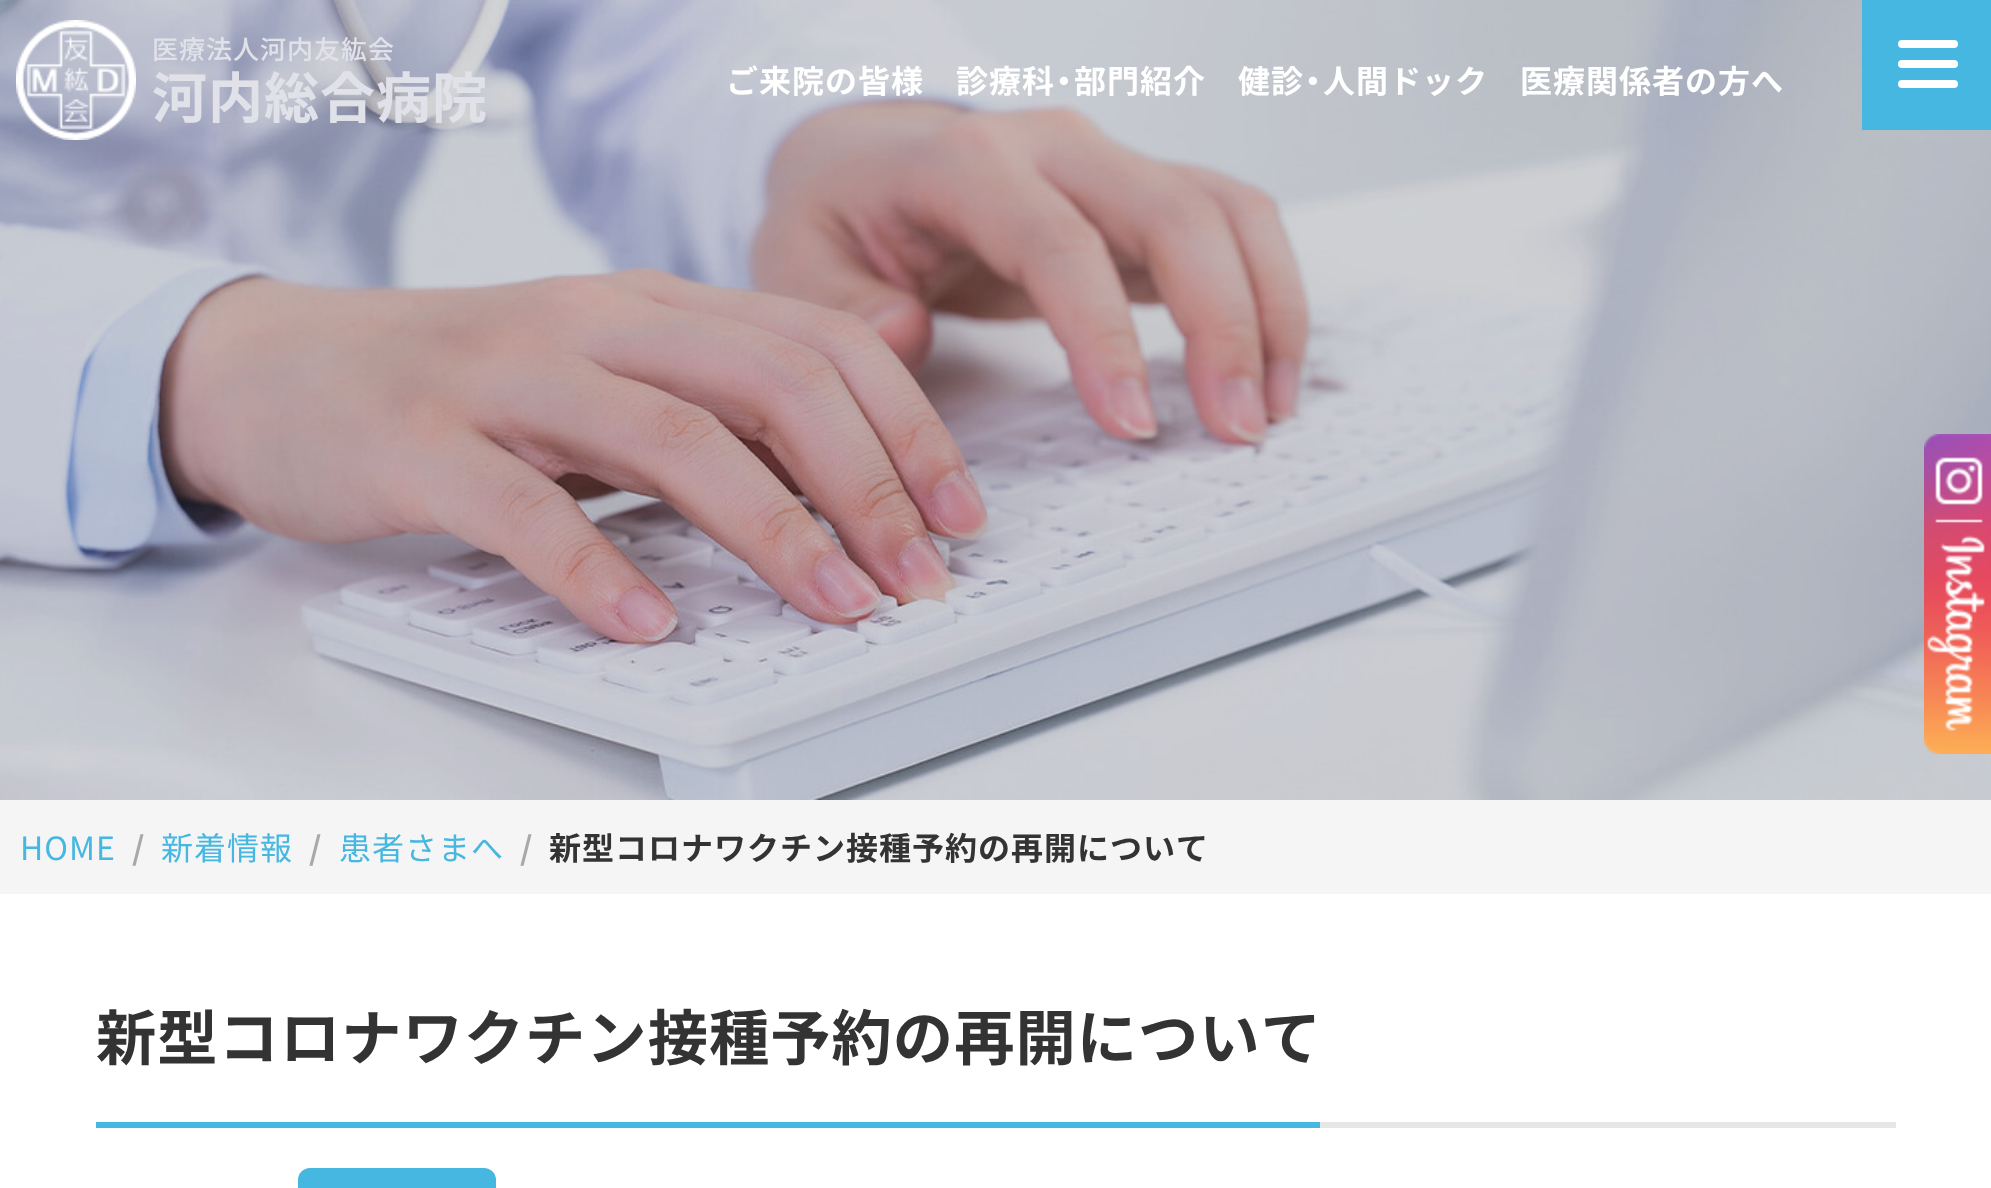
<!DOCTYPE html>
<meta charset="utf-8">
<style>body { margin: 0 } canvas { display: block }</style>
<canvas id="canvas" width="1991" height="1188"></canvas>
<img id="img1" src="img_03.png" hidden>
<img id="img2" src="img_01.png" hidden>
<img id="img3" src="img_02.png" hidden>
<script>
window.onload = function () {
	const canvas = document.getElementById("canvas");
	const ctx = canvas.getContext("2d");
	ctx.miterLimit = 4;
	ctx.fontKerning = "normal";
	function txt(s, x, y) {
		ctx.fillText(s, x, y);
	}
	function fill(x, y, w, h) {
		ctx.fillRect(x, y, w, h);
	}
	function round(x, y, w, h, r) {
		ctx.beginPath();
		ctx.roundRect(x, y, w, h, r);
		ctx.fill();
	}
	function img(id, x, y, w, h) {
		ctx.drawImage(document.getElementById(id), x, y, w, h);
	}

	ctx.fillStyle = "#FFFFFF";
	fill(0, 0, 1991, 1188);
	img("img1", 0, 0, 1991, 800);
	img("img2", 16, 20, 120, 120);
	ctx.fillStyle = "#46B7E1";
	fill(1862, 0, 129, 130);
	ctx.fillStyle = "#FFFFFF";
	round(1898, 40, 60, 8, 4);
	round(1898, 60, 60, 8, 4);
	round(1898, 80, 60, 8, 4);
	img("img3", 1924, 434, 67, 320);
	ctx.fillStyle = "#F5F5F5";
	fill(0, 800, 1991, 94);
	ctx.fillStyle = "#46B7E1";
	fill(96, 1122, 1224, 6);
	ctx.fillStyle = "#E6E6E6";
	fill(1320, 1122, 576, 6);
	ctx.fillStyle = "#46B7E1";
	round(298, 1168, 198, 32, 12);
	ctx.letterSpacing = "1px";
	ctx.font = "500 26px Noto Sans JP";
	ctx.fillStyle = "#E1E2E9";
	txt("医療法人河内友紘会", 152, 59);
	ctx.font = "bold 55px Noto Sans JP";
	txt("河内総合病院", 152, 118);
	ctx.font = "bold 32px Noto Sans JP";
	ctx.fillStyle = "#FFFFFF";
	txt("ご来院の皆様", 726, 93);
	txt("診療科", 956, 93);
	ctx.font = "bold 32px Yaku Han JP";
	txt("・", 1055, 93);
	ctx.font = "bold 32px Noto Sans JP";
	txt("部門紹介", 1074, 93);
	txt("健診", 1238, 93);
	ctx.font = "bold 32px Yaku Han JP";
	txt("・", 1304, 93);
	ctx.font = "bold 32px Noto Sans JP";
	txt("人間ドック", 1323, 93);
	txt("医療関係者の方へ", 1520, 93);
	ctx.font = "32px Noto Sans JP";
	ctx.fillStyle = "#46B7E1";
	txt("HOME", 20, 860);
	ctx.font = "bold 32px Noto Sans JP";
	ctx.fillStyle = "#A8A8A8";
	txt("/", 132, 860);
	ctx.font = "32px Noto Sans JP";
	ctx.fillStyle = "#46B7E1";
	txt("新着情報", 161, 860);
	ctx.font = "bold 32px Noto Sans JP";
	ctx.fillStyle = "#A8A8A8";
	txt("/", 309, 860);
	ctx.font = "32px Noto Sans JP";
	ctx.fillStyle = "#46B7E1";
	txt("患者さまへ", 339, 860);
	ctx.font = "bold 32px Noto Sans JP";
	ctx.fillStyle = "#A8A8A8";
	txt("/", 520, 860);
	ctx.fillStyle = "#333333";
	txt("新型コロナワクチン接種予約の再開について", 549, 860);
	ctx.font = "bold 60.3px Noto Sans JP";
	txt("新型コロナワクチン接種予約の再開について", 96, 1060);
};
</script>
